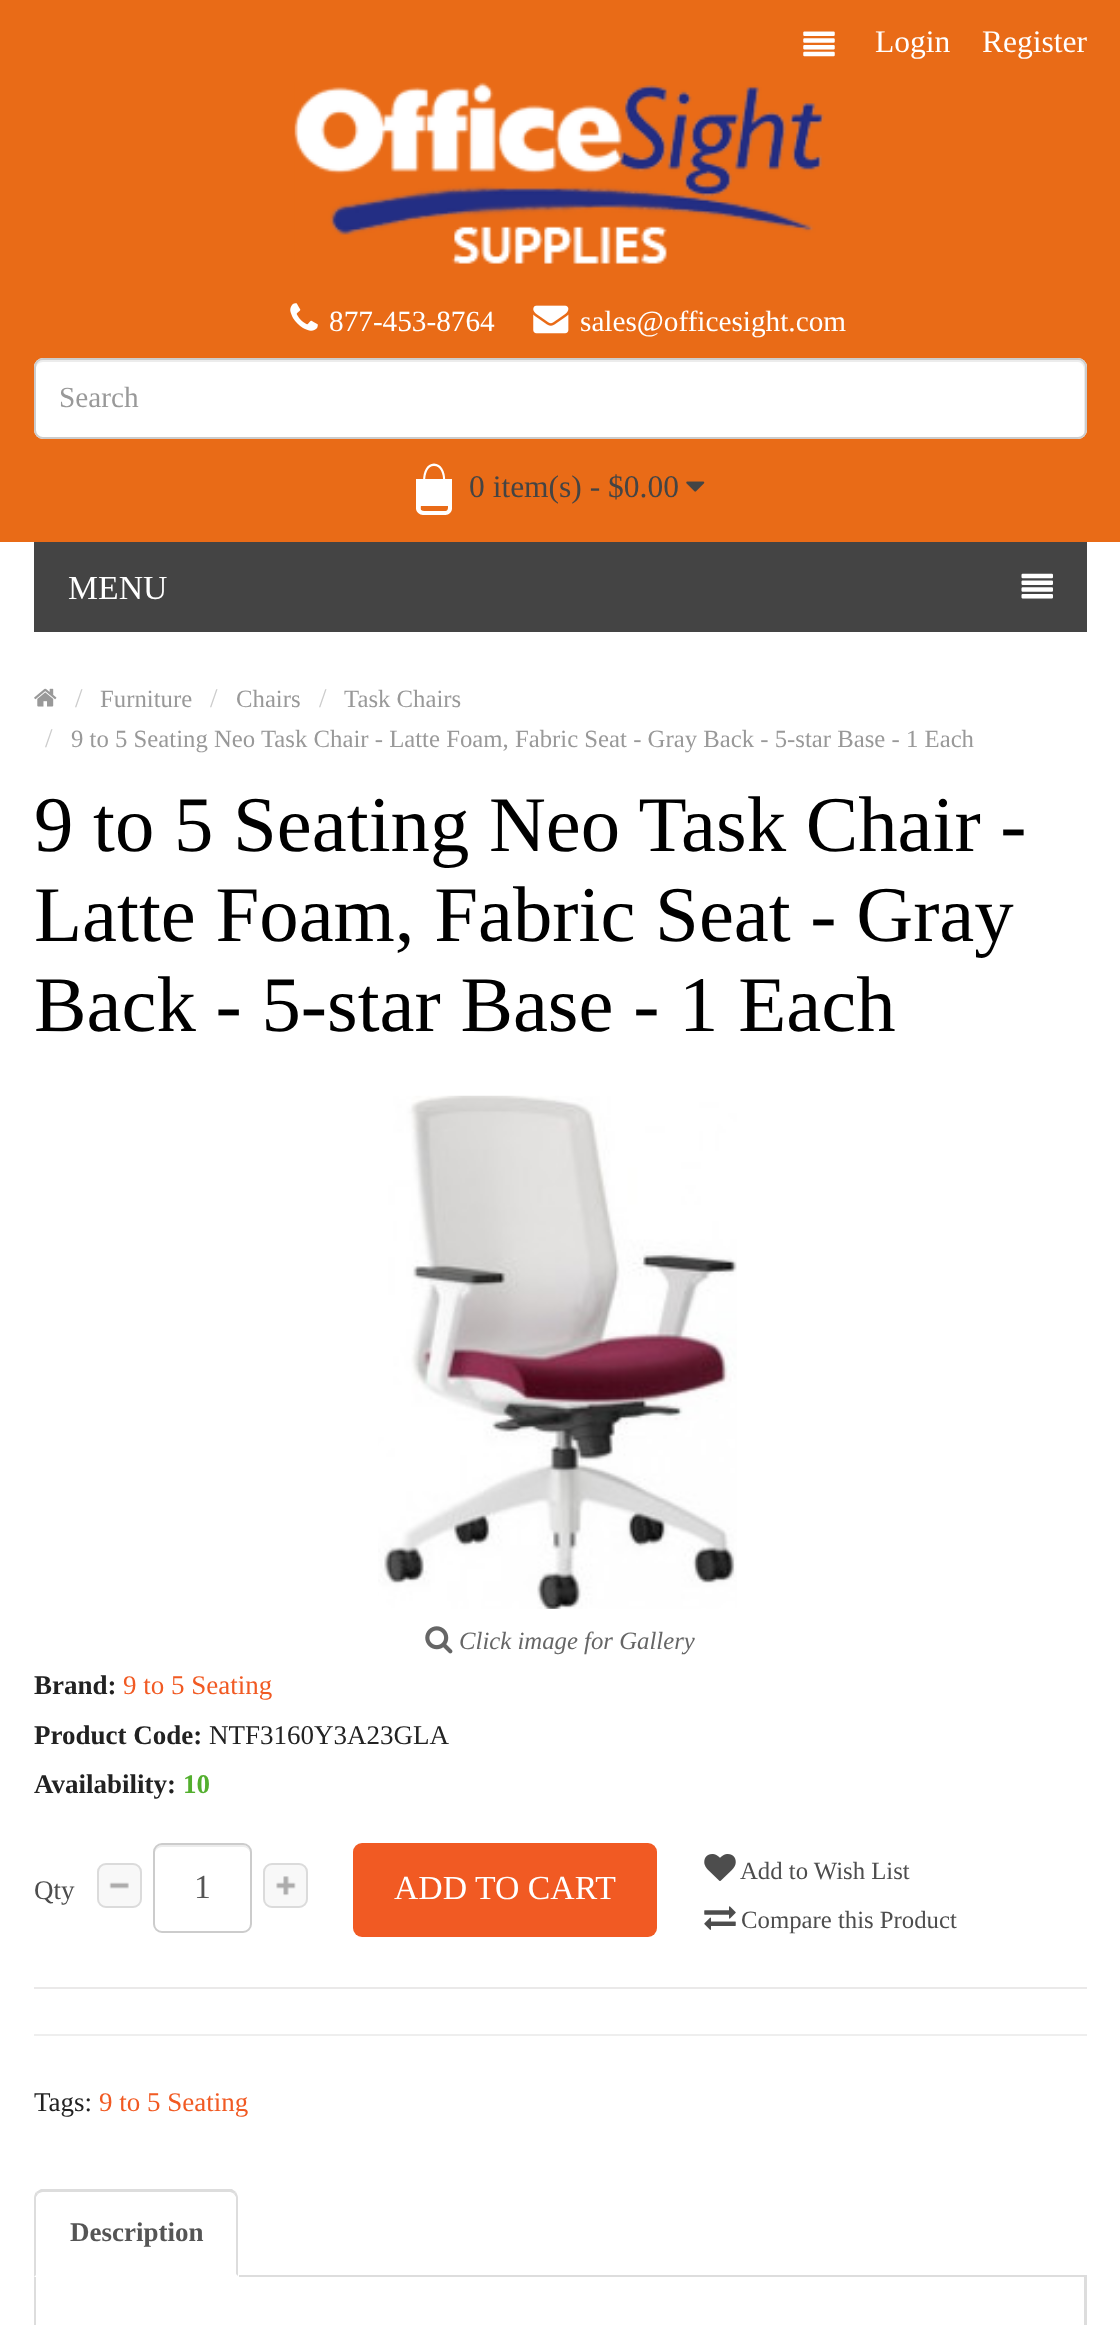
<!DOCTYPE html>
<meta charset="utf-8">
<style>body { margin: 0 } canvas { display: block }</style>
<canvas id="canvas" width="1120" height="2325"></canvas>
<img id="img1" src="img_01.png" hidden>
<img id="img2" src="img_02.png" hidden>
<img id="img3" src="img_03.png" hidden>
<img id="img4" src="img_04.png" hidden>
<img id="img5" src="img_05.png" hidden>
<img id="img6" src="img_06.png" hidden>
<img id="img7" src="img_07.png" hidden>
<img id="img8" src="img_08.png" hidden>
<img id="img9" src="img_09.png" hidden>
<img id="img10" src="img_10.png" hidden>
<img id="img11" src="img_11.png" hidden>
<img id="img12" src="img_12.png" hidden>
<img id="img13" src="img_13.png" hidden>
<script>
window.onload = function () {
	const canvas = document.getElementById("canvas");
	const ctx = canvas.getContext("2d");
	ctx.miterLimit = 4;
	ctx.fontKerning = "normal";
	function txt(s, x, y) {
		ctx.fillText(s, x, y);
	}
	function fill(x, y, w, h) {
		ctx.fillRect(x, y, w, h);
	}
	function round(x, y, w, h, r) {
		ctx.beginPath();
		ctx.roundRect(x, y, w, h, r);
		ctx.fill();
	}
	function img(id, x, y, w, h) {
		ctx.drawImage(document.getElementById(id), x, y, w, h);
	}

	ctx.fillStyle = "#FFFFFF";
	fill(0, 0, 1120, 2325);
	ctx.fillStyle = "#E96B17";
	fill(0, 0, 1120, 542);
	img("img1", 803, 31, 32, 26);
	img("img2", 294, 82, 530, 182);
	img("img3", 290, 303, 28, 28);
	img("img4", 533, 305, 36, 29);
	ctx.fillStyle = "#FFFFFF";
	round(34, 358, 1053, 81, 9);
	ctx.fillStyle = "#ECECEC";
	ctx.beginPath();
	ctx.moveTo(43, 362);
	ctx.lineTo(1078, 362);
	ctx.bezierCurveTo(1081, 362, 1084, 365, 1084, 369);
	ctx.lineTo(1084, 434);
	ctx.bezierCurveTo(1085, 433, 1085, 431, 1085, 430);
	ctx.lineTo(1085, 367);
	ctx.bezierCurveTo(1085, 363, 1082, 360, 1078, 360);
	ctx.lineTo(43, 360);
	ctx.bezierCurveTo(39, 360, 36, 363, 36, 367);
	ctx.lineTo(36, 369);
	ctx.bezierCurveTo(36, 365, 39, 362, 43, 362);
	ctx.closePath();
	ctx.fill();
	ctx.beginPath();
	ctx.roundRect(35, 359, 1051, 79, 8);
	ctx.strokeStyle = "#CCCCCC";
	ctx.lineWidth = 2;
	ctx.stroke();
	ctx.fillStyle = "#FFFFFF";
	fill(416, 479, 36, 27);
	ctx.beginPath();
	ctx.moveTo(434, 463.5);
	ctx.bezierCurveTo(449, 463.5, 449, 497, 434, 497);
	ctx.bezierCurveTo(419.5, 497, 419.5, 463.5, 434, 463.5);
	ctx.closePath();
	ctx.moveTo(434, 466);
	ctx.bezierCurveTo(447, 466, 445.5, 497, 434, 497);
	ctx.bezierCurveTo(423, 497, 421.5, 466, 434, 466);
	ctx.closePath();
	ctx.fill("evenodd");
	ctx.beginPath();
	ctx.moveTo(423, 495);
	ctx.lineTo(445.5, 495);
	ctx.bezierCurveTo(449, 495, 452, 498, 452, 502);
	ctx.lineTo(452, 508.5);
	ctx.bezierCurveTo(452, 512, 449, 515, 445.5, 515);
	ctx.lineTo(423, 515);
	ctx.bezierCurveTo(419.5, 515, 416, 512, 416, 508.5);
	ctx.lineTo(416, 502);
	ctx.bezierCurveTo(416, 498, 419.5, 495, 423, 495);
	ctx.closePath();
	ctx.moveTo(423, 495);
	ctx.lineTo(446, 495);
	ctx.bezierCurveTo(448, 496.5, 448, 503, 448, 505);
	ctx.bezierCurveTo(448, 507, 448.5, 510.5, 445.5, 511);
	ctx.lineTo(427, 511);
	ctx.bezierCurveTo(419, 511, 421, 510, 421, 503);
	ctx.bezierCurveTo(421, 501.5, 421, 495, 423, 495);
	ctx.closePath();
	ctx.fill("evenodd");
	img("img5", 686, 481, 19, 11);
	ctx.fillStyle = "#444444";
	fill(34, 542, 1053, 90);
	img("img6", 1021, 573, 32, 26);
	img("img7", 34, 688, 23, 19);
	img("img8", 378, 1095, 359, 514);
	img("img9", 425, 1626, 28, 28);
	ctx.fillStyle = "#EAE9E9";
	fill(34, 1987, 1053, 2);
	ctx.fillStyle = "#F8F8F8";
	round(97, 1863, 45, 45, 9);
	img("img10", 109, 1882, 20, 7);
	ctx.beginPath();
	ctx.roundRect(98, 1864, 43, 43, 8);
	ctx.strokeStyle = "#DBDBDB";
	ctx.stroke();
	ctx.fillStyle = "#ECECEC";
	ctx.beginPath();
	ctx.moveTo(162, 1847);
	ctx.lineTo(243, 1847);
	ctx.bezierCurveTo(247, 1847, 250, 1850, 250, 1854);
	ctx.bezierCurveTo(250, 1842, 239, 1845, 230, 1845);
	ctx.lineTo(176, 1845);
	ctx.bezierCurveTo(166, 1845, 155, 1842, 155, 1854);
	ctx.bezierCurveTo(155, 1850, 158, 1847, 162, 1847);
	ctx.closePath();
	ctx.fill();
	ctx.beginPath();
	ctx.roundRect(154, 1844, 97, 88, 8);
	ctx.strokeStyle = "#CCCCCC";
	ctx.stroke();
	ctx.fillStyle = "#F8F8F8";
	round(263, 1863, 45, 45, 9);
	img("img11", 276, 1876, 20, 20);
	ctx.beginPath();
	ctx.roundRect(264, 1864, 43, 43, 8);
	ctx.strokeStyle = "#DBDBDB";
	ctx.stroke();
	ctx.fillStyle = "#F15A23";
	round(353, 1843, 304, 94, 9);
	img("img12", 704, 1854, 32, 27);
	img("img13", 704, 1906, 32, 24);
	ctx.fillStyle = "#EEEEEE";
	fill(34, 2034, 1053, 2);
	ctx.fillStyle = "#DDDDDD";
	fill(239, 2275, 848, 2);
	ctx.beginPath();
	ctx.moveTo(43, 2192);
	ctx.bezierCurveTo(41, 2192, 39, 2193, 38, 2194);
	ctx.lineTo(36, 2192);
	ctx.bezierCurveTo(38, 2191, 39, 2190, 41, 2189);
	ctx.lineTo(232, 2189);
	ctx.bezierCurveTo(233, 2190, 235, 2191, 236, 2192);
	ctx.lineTo(234, 2194);
	ctx.bezierCurveTo(233, 2193, 231, 2192, 230, 2192);
	ctx.closePath();
	ctx.fill();
	ctx.beginPath();
	ctx.moveTo(236, 2192);
	ctx.bezierCurveTo(237, 2194, 238, 2196, 238, 2198);
	ctx.lineTo(238, 2276);
	ctx.lineTo(236, 2274);
	ctx.lineTo(236, 2197);
	ctx.lineTo(234, 2194);
	ctx.closePath();
	ctx.fill();
	ctx.beginPath();
	ctx.moveTo(34, 2277);
	ctx.lineTo(34, 2198);
	ctx.bezierCurveTo(34, 2196, 35, 2193, 36, 2192);
	ctx.lineTo(38, 2194);
	ctx.lineTo(36, 2197);
	ctx.lineTo(36, 2275);
	ctx.closePath();
	ctx.fill();
	ctx.beginPath();
	ctx.moveTo(34, 2277);
	ctx.lineTo(1087, 2277);
	ctx.lineTo(1087, 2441);
	ctx.bezierCurveTo(1087, 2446, 1083, 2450, 1078, 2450);
	ctx.lineTo(43, 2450);
	ctx.bezierCurveTo(38, 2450, 34, 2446, 34, 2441);
	ctx.closePath();
	ctx.moveTo(36, 2277);
	ctx.lineTo(1084, 2277);
	ctx.lineTo(1084, 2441);
	ctx.bezierCurveTo(1084, 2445, 1081, 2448, 1078, 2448);
	ctx.lineTo(43, 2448);
	ctx.bezierCurveTo(39, 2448, 36, 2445, 36, 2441);
	ctx.closePath();
	ctx.fill("evenodd");
	ctx.font = "31.5px Liberation Serif";
	ctx.fillStyle = "#FFFFFF";
	txt("Login", 875, 52);
	txt("Register", 982, 52);
	ctx.font = "29.25px Liberation Serif";
	txt("877-453-8764", 329, 331);
	txt("sales@officesight.com", 580, 331);
	ctx.fillStyle = "#999999";
	txt("Search", 59, 407);
	ctx.font = "31.5px Liberation Serif";
	ctx.fillStyle = "#444444";
	txt("0 item(s) - $0.00", 469, 497);
	ctx.font = "33.75px Liberation Serif";
	ctx.fillStyle = "#FFFFFF";
	txt("MENU", 68, 599);
	ctx.font = "27px Liberation Serif";
	ctx.fillStyle = "#CCCCCC";
	txt("/", 75, 707);
	ctx.font = "24.75px Liberation Serif";
	ctx.fillStyle = "#999999";
	txt("Furniture", 100, 707);
	ctx.font = "27px Liberation Serif";
	ctx.fillStyle = "#CCCCCC";
	txt("/", 210, 707);
	ctx.font = "24.75px Liberation Serif";
	ctx.fillStyle = "#999999";
	txt("Chairs", 236, 707);
	ctx.font = "27px Liberation Serif";
	ctx.fillStyle = "#CCCCCC";
	txt("/", 319, 707);
	ctx.font = "24.75px Liberation Serif";
	ctx.fillStyle = "#999999";
	txt("Task Chairs", 344, 707);
	ctx.font = "27px Liberation Serif";
	ctx.fillStyle = "#CCCCCC";
	txt("/", 45, 747);
	ctx.font = "24.75px Liberation Serif";
	ctx.fillStyle = "#999999";
	txt("9 to 5 Seating Neo Task Chair - Latte Foam, Fabric Seat - Gray Back - 5-star Base - 1 Each", 71, 747);
	ctx.font = "78.75px Liberation Serif";
	ctx.fillStyle = "#000000";
	txt("9 to 5 Seating Neo Task Chair -", 34, 851);
	txt("Latte Foam, Fabric Seat - Gray", 34, 941);
	txt("Back - 5-star Base - 1 Each", 34, 1031);
	ctx.font = "italic 24.75px Liberation Serif";
	ctx.fillStyle = "#666666";
	txt("Click image for Gallery", 459, 1649);
	ctx.font = "bold 27px Liberation Serif";
	ctx.fillStyle = "#222222";
	txt("Brand:", 34, 1694);
	ctx.font = "27px Liberation Serif";
	ctx.fillStyle = "#F15A23";
	txt("9 to 5 Seating", 123, 1694);
	ctx.font = "bold 27px Liberation Serif";
	ctx.fillStyle = "#222222";
	txt("Product Code:", 34, 1744);
	ctx.font = "27px Liberation Serif";
	txt("NTF3160Y3A23GLA", 209, 1744);
	ctx.font = "bold 27px Liberation Serif";
	txt("Availability:", 34, 1793);
	ctx.fillStyle = "#53AF2E";
	txt("10", 183, 1793);
	ctx.font = "27px Liberation Serif";
	ctx.fillStyle = "#4D4D4D";
	txt("Qty", 34, 1899);
	ctx.font = "33.75px Liberation Serif";
	ctx.fillStyle = "#555555";
	txt("1", 194, 1898);
	ctx.fillStyle = "#FFFFFF";
	txt("ADD TO CART", 394, 1899);
	ctx.font = "24.75px Liberation Serif";
	ctx.fillStyle = "#4D4D4D";
	txt("Add to Wish List", 740, 1879);
	txt("Compare this Product", 741, 1928);
	ctx.font = "27px Liberation Serif";
	ctx.fillStyle = "#222222";
	txt("Tags:", 34, 2111);
	ctx.fillStyle = "#F15A23";
	txt("9 to 5 Seating", 99, 2111);
	ctx.font = "bold 27px Liberation Serif";
	ctx.fillStyle = "#555555";
	txt("Description", 70, 2241);
};
</script>
